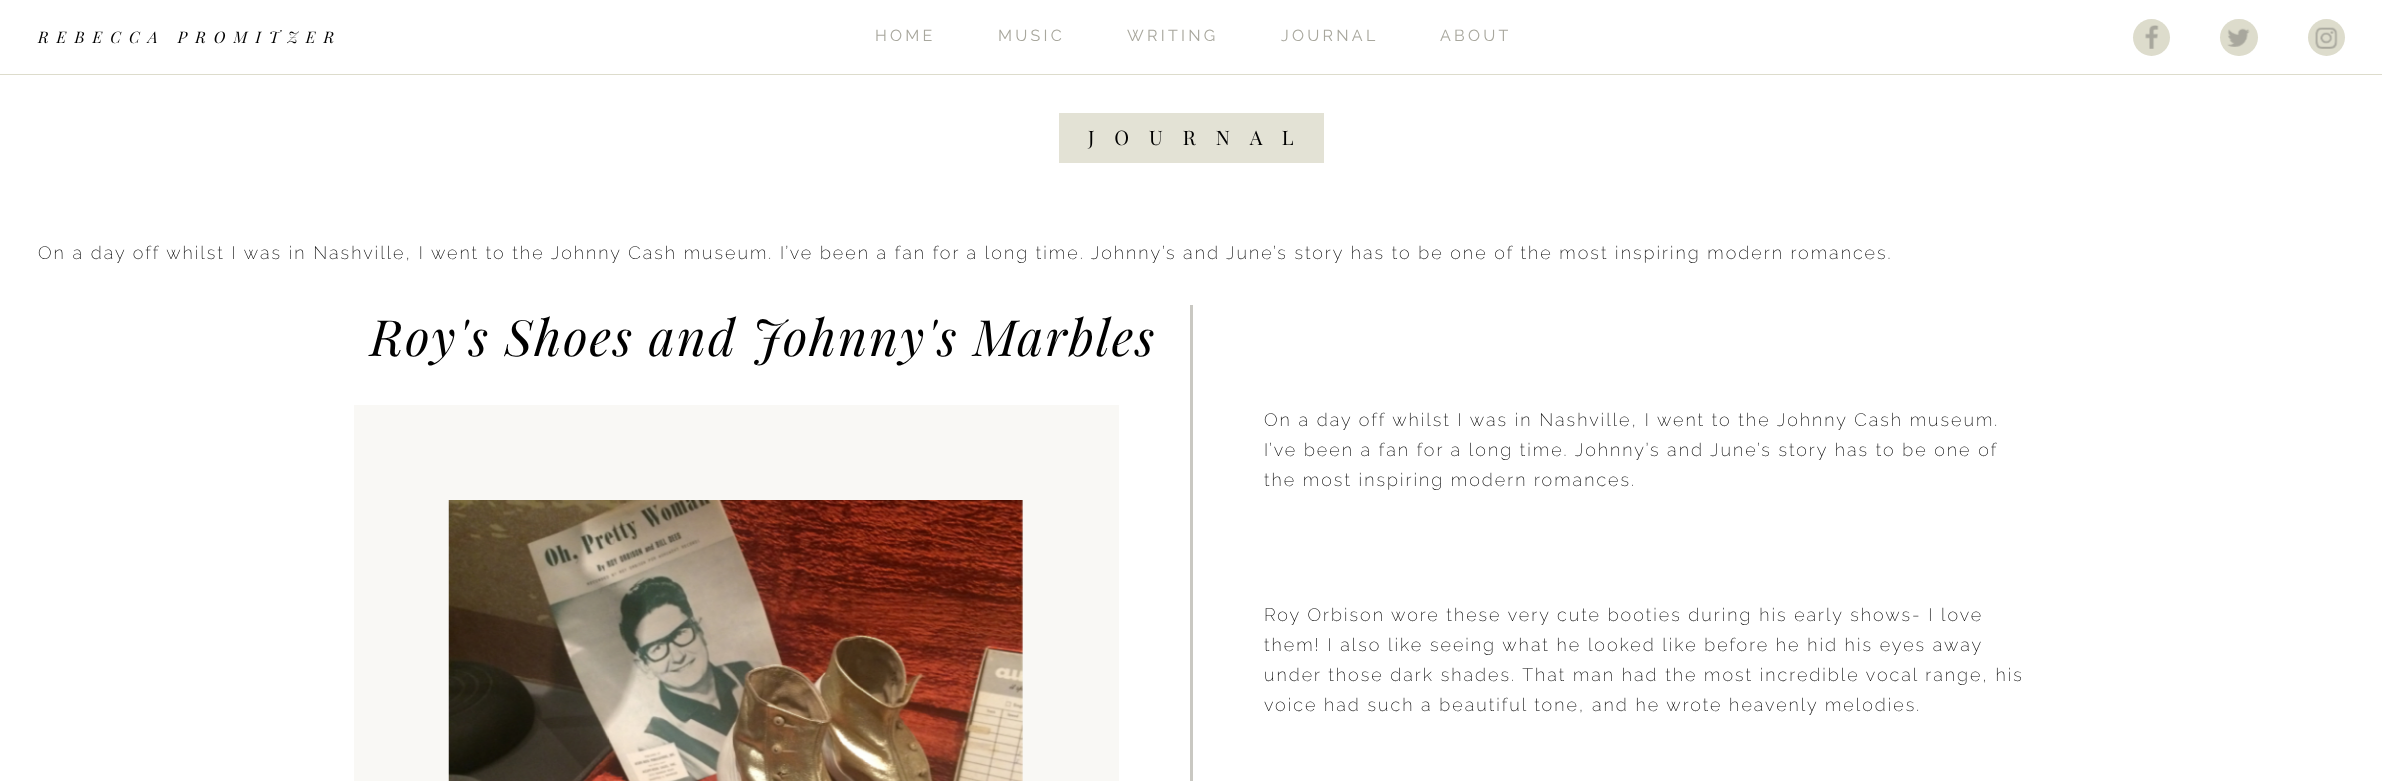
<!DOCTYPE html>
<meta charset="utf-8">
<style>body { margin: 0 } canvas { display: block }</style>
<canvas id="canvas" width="2382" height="781"></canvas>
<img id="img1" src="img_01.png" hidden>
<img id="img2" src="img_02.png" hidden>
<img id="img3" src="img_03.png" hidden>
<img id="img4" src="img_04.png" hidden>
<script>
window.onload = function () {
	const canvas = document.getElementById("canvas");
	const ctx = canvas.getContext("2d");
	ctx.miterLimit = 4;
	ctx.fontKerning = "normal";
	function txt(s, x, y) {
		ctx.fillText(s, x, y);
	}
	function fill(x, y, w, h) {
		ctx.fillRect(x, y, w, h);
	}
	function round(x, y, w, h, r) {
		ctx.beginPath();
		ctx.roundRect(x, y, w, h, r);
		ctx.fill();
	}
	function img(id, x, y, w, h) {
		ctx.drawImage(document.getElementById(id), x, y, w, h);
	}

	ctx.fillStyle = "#FFFFFF";
	fill(0, 0, 2382, 781);
	ctx.fillStyle = "#DDDCCC";
	fill(0, 74, 2382, 1);
	ctx.beginPath();
	ctx.arc(2151.5, 37.5, 18.5, 0, Math.PI * 2);
	ctx.fill();
	img("img1", 2145, 25, 14, 24);
	round(2220, 19, 38, 37, 18.5);
	img("img2", 2227, 28, 23, 19);
	ctx.beginPath();
	ctx.arc(2326.5, 37.5, 18.5, 0, Math.PI * 2);
	ctx.fill();
	img("img3", 2315, 27, 23, 22);
	ctx.fillStyle = "#E3E2D5";
	fill(1059, 113, 265, 50);
	ctx.fillStyle = "#C9C8C2";
	fill(1190, 305, 3, 476);
	ctx.fillStyle = "#F9F8F5";
	fill(354, 405, 765, 376);
	img("img4", 448, 500, 575, 281);
	ctx.letterSpacing = "8px";
	ctx.font = "italic 16px Playfair Display";
	ctx.fillStyle = "#000000";
	txt("REBECCA PROMITZER", 38, 43);
	ctx.letterSpacing = "3.25px";
	ctx.font = "16px Raleway";
	ctx.fillStyle = "#A8A79D";
	txt("HOME", 875, 41);
	txt("MUSIC", 998, 41);
	txt("WRITING", 1127, 41);
	txt("JOURNAL", 1281, 41);
	txt("ABOUT", 1440, 41);
	ctx.letterSpacing = "20px";
	ctx.font = "20px Playfair Display";
	ctx.fillStyle = "#000000";
	txt("JOURNAL", 1088, 145);
	ctx.letterSpacing = "2px";
	ctx.font = "200 18px Raleway";
	txt("On a day off whilst I was in Nashville, I went to the Johnny Cash museum. I’ve been a fan for a long time. Johnny’s and June’s story has to be one of the most inspiring modern romances.", 38, 259);
	ctx.font = "italic 50px Playfair Display";
	txt("Roy's Shoes and Johnny's Marbles", 370, 356);
	ctx.font = "200 18px Raleway";
	txt("On a day off whilst I was in Nashville, I went to the Johnny Cash museum.", 1264, 426);
	txt("I’ve been a fan for a long time. Johnny’s and June’s story has to be one of", 1264, 456);
	txt("the most inspiring modern romances.", 1264, 486);
	txt("Roy Orbison wore these very cute booties during his early shows- I love", 1264, 621);
	txt("them! I also like seeing what he looked like before he hid his eyes away", 1264, 651);
	txt("under those dark shades. That man had the most incredible vocal range, his", 1264, 681);
	txt("voice had such a beautiful tone, and he wrote heavenly melodies.", 1264, 711);
};
</script>
